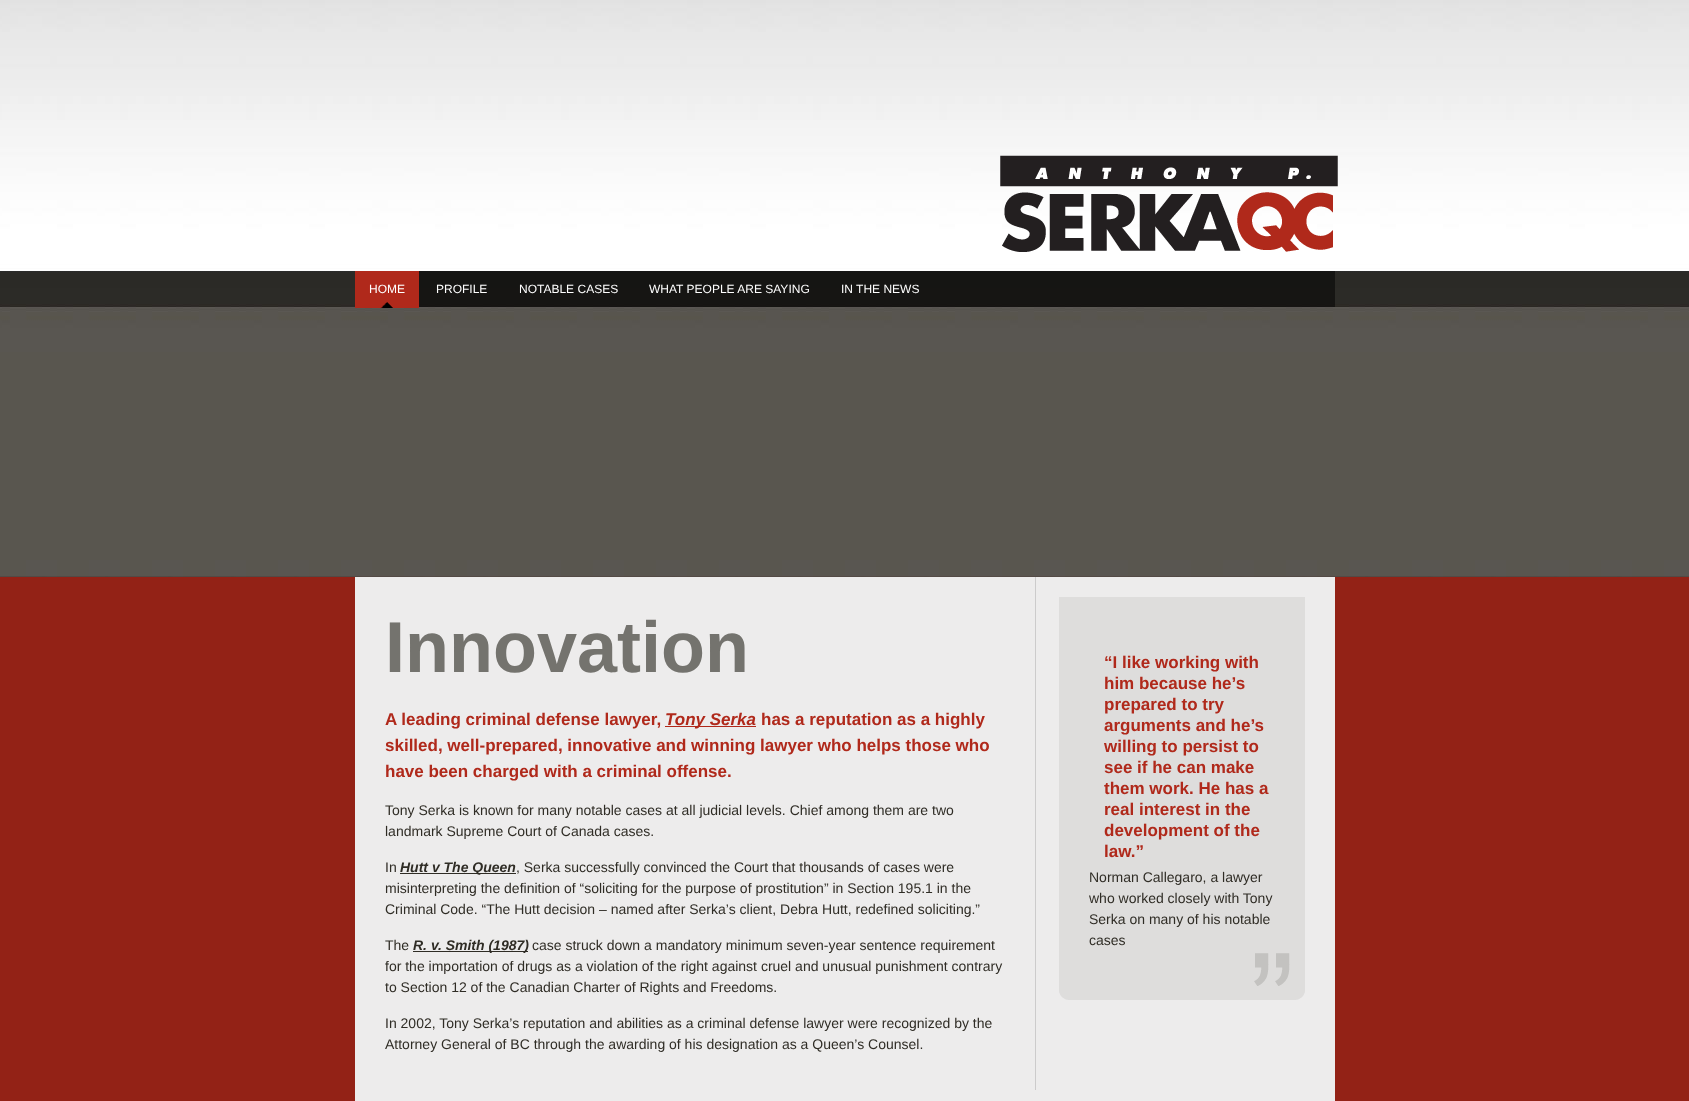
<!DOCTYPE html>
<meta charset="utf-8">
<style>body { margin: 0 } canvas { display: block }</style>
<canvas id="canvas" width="1689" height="1101"></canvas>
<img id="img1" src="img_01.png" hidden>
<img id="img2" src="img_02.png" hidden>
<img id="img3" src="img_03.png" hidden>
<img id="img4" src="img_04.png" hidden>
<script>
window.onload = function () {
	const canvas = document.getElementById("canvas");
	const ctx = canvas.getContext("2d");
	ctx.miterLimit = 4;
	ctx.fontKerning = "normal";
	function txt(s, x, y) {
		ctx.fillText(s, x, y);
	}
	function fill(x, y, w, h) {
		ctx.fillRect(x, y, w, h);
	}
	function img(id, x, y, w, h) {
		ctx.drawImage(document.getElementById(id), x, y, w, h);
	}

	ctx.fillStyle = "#932216";
	fill(0, 0, 1689, 1101);
	img("img1", 0, 0, 1689, 577);
	img("img2", 1000, 155, 338, 97);
	ctx.fillStyle = "rgba(0, 0, 0, 0.5)";
	fill(419, 271, 916, 36);
	ctx.fillStyle = "#B0291B";
	fill(355, 271, 64, 37);
	img("img3", 380, 302, 13, 6);
	ctx.fillStyle = "#EDECEC";
	fill(355, 577, 980, 524);
	ctx.fillStyle = "#CCCBCB";
	fill(1035, 577, 1, 513);
	ctx.fillStyle = "#B0291B";
	fill(665, 726, 91, 1);
	ctx.fillStyle = "#2F2C25";
	fill(400, 873, 116, 1);
	fill(413, 951, 115, 1);
	ctx.fillStyle = "#DEDDDC";
	fill(1059, 597, 246, 354);
	img("img4", 1059, 951, 246, 49);
	ctx.font = "12px Liberation Sans";
	ctx.fillStyle = "#FFFFFF";
	txt("HOME", 369, 293);
	txt("PROFILE", 436, 293);
	txt("NOTABLE CASES", 519, 293);
	txt("WHAT PEOPLE ARE SAYING", 649, 293);
	txt("IN THE NEWS", 841, 293);
	ctx.font = "bold 72px Liberation Sans";
	ctx.fillStyle = "#74736E";
	txt("Innovation", 385, 672);
	ctx.font = "bold 17px Liberation Sans";
	ctx.fillStyle = "#B0291B";
	txt("A leading criminal defense lawyer,", 385, 725);
	ctx.font = "italic bold 17px Liberation Sans";
	txt("Tony Serka", 665, 725);
	ctx.font = "bold 17px Liberation Sans";
	txt("has a reputation as a highly", 761, 725);
	txt("skilled, well-prepared, innovative and winning lawyer who helps those who", 385, 751);
	txt("have been charged with a criminal offense.", 385, 777);
	ctx.font = "14px Liberation Sans";
	ctx.fillStyle = "#2F2C25";
	txt("Tony Serka is known for many notable cases at all judicial levels. Chief among them are two", 385, 815);
	txt("landmark Supreme Court of Canada cases.", 385, 836);
	txt("In", 385, 872);
	ctx.font = "italic bold 14px Liberation Sans";
	txt("Hutt v The Queen", 400, 872);
	ctx.font = "14px Liberation Sans";
	txt(", Serka successfully convinced the Court that thousands of cases were", 516, 872);
	txt("misinterpreting the definition of “soliciting for the purpose of prostitution” in Section 195.1 in the", 385, 893);
	txt("Criminal Code. “The Hutt decision – named after Serka’s client, Debra Hutt, redefined soliciting.”", 385, 914);
	txt("The", 385, 950);
	ctx.font = "italic bold 14px Liberation Sans";
	txt("R. v. Smith (1987)", 413, 950);
	ctx.font = "14px Liberation Sans";
	txt("case struck down a mandatory minimum seven-year sentence requirement", 532, 950);
	txt("for the importation of drugs as a violation of the right against cruel and unusual punishment contrary", 385, 971);
	txt("to Section 12 of the Canadian Charter of Rights and Freedoms.", 385, 992);
	txt("In 2002, Tony Serka’s reputation and abilities as a criminal defense lawyer were recognized by the", 385, 1028);
	txt("Attorney General of BC through the awarding of his designation as a Queen’s Counsel.", 385, 1049);
	ctx.font = "bold 17px Liberation Sans";
	ctx.fillStyle = "#B0291B";
	txt("“I like working with", 1104, 668);
	txt("him because he’s", 1104, 689);
	txt("prepared to try", 1104, 710);
	txt("arguments and he’s", 1104, 731);
	txt("willing to persist to", 1104, 752);
	txt("see if he can make", 1104, 773);
	txt("them work. He has a", 1104, 794);
	txt("real interest in the", 1104, 815);
	txt("development of the", 1104, 836);
	txt("law.”", 1104, 857);
	ctx.font = "14px Liberation Sans";
	ctx.fillStyle = "#2F2C25";
	txt("Norman Callegaro, a lawyer", 1089, 882);
	txt("who worked closely with Tony", 1089, 903);
	txt("Serka on many of his notable", 1089, 924);
	txt("cases", 1089, 945);
};
</script>
